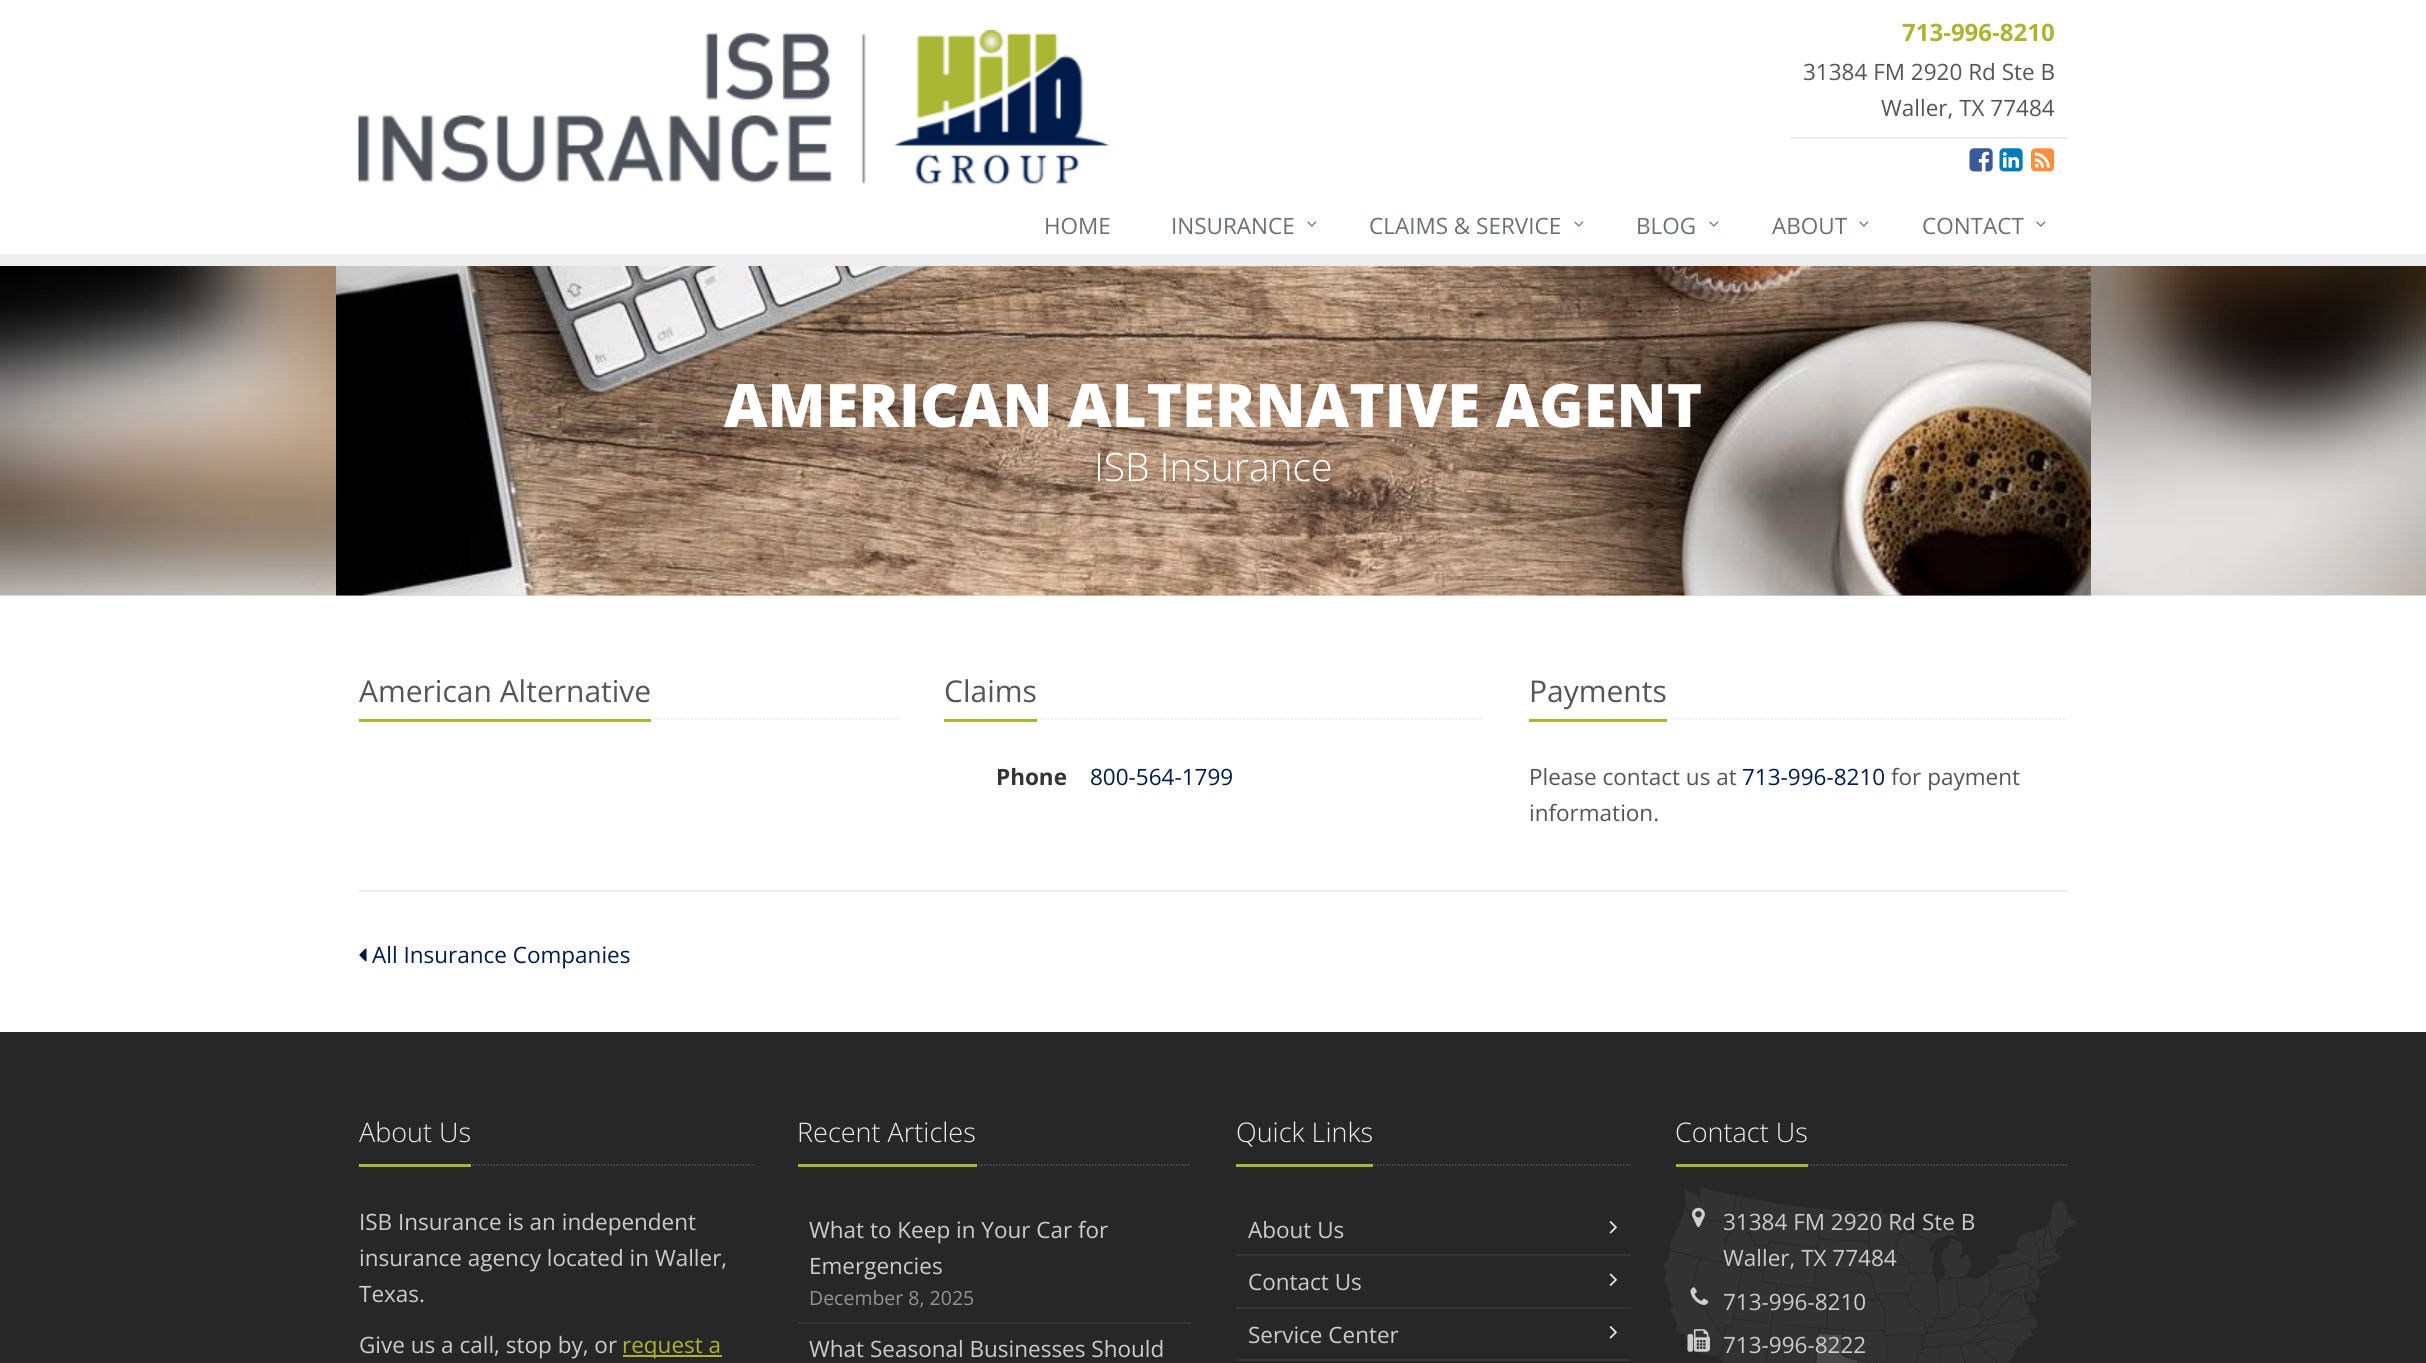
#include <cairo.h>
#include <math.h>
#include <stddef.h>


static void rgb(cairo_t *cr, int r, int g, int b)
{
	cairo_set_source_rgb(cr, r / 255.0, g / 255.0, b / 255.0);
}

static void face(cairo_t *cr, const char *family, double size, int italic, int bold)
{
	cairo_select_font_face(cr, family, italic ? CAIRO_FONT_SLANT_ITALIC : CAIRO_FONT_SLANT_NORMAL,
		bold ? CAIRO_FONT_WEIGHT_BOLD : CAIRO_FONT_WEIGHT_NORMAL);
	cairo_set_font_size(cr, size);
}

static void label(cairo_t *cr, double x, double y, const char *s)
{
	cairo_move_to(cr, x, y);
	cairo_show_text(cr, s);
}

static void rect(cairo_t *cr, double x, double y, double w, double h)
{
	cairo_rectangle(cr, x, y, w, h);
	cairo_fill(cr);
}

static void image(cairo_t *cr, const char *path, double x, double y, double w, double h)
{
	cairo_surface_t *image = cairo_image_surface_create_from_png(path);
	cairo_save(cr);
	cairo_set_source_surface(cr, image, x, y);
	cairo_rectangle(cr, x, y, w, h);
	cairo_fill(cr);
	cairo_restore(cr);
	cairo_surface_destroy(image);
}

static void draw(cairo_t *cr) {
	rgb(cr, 255, 255, 255);
	cairo_paint(cr);
	rgb(cr, 238, 238, 238);
	rect(cr, 0, 254, 2426, 12);
	image(cr, "image0.png", 358, 30, 752, 155);
	rect(cr, 1790, 137, 279, 2);
	face(cr, "Open Sans", 24, 0, 1);
	rgb(cr, 169, 181, 51);
	label(cr, 1902, 41, "713-996-8210");
	face(cr, "Open Sans", 22.5, 0, 0);
	rgb(cr, 85, 85, 85);
	label(cr, 1803, 80, "31384 FM 2920 Rd Ste B");
	label(cr, 1881, 116, "Waller, TX 77484");
	image(cr, "image1.png", 1969, 148, 24, 24);
	image(cr, "image2.png", 1999, 148, 24, 24);
	image(cr, "image3.png", 2031, 148, 24, 24);
	rgb(cr, 104, 112, 116);
	label(cr, 1044, 234, "HOME");
	label(cr, 1171, 234, "INSURANCE");
	image(cr, "image4.png", 1307, 221, 10, 6);
	label(cr, 1369, 234, "CLAIMS & SERVICE");
	image(cr, "image4.png", 1574, 221, 10, 6);
	label(cr, 1636, 234, "BLOG");
	image(cr, "image4.png", 1709, 221, 10, 6);
	label(cr, 1772, 234, "ABOUT");
	image(cr, "image4.png", 1859, 221, 10, 6);
	label(cr, 1922, 234, "CONTACT");
	image(cr, "image4.png", 2036, 221, 10, 6);
	image(cr, "image5.png", 0, 266, 2426, 330);
	face(cr, "Open Sans ExtraBold", 60, 0, 0);
	rgb(cr, 255, 255, 255);
	label(cr, 724, 427, "AMERICAN ALTERNATIVE AGENT");
	face(cr, "Open Sans Light", 39, 0, 0);
	label(cr, 1094, 481, "ISB Insurance");
	cairo_new_path(cr);
	cairo_move_to(cr, 358.5, 719);
	cairo_line_to(cr, 898.5, 719);
	rgb(cr, 228, 233, 240);
	cairo_set_line_width(cr, 1.5);
	cairo_set_dash(cr, (double[]){1.5, 1.5}, 2, 0);
	cairo_stroke(cr);
	rgb(cr, 169, 181, 51);
	rect(cr, 359, 719, 292, 3);
	face(cr, "Open Sans", 30, 0, 0);
	rgb(cr, 85, 85, 85);
	label(cr, 359, 702, "American Alternative");
	cairo_new_path(cr);
	cairo_move_to(cr, 943.5, 719);
	cairo_line_to(cr, 1483.5, 719);
	rgb(cr, 228, 233, 240);
	cairo_stroke(cr);
	rgb(cr, 169, 181, 51);
	rect(cr, 944, 719, 93, 3);
	rgb(cr, 85, 85, 85);
	label(cr, 944, 702, "Claims");
	face(cr, "Open Sans", 22.5, 0, 1);
	rgb(cr, 51, 51, 51);
	label(cr, 996, 785, "Phone");
	face(cr, "Open Sans", 22.5, 0, 0);
	rgb(cr, 0, 27, 73);
	label(cr, 1090, 785, "800-564-1799");
	cairo_new_path(cr);
	cairo_move_to(cr, 1528.5, 719);
	cairo_line_to(cr, 2068.5, 719);
	rgb(cr, 228, 233, 240);
	cairo_stroke(cr);
	rgb(cr, 169, 181, 51);
	rect(cr, 1529, 719, 138, 3);
	face(cr, "Open Sans", 30, 0, 0);
	rgb(cr, 85, 85, 85);
	label(cr, 1529, 702, "Payments");
	face(cr, "Open Sans", 22.5, 0, 0);
	label(cr, 1529, 785, "Please contact us at");
	rgb(cr, 0, 27, 73);
	label(cr, 1742, 785, "713-996-8210");
	rgb(cr, 85, 85, 85);
	label(cr, 1891, 785, "for payment");
	label(cr, 1529, 821, "information.");
	rgb(cr, 238, 238, 238);
	rect(cr, 359, 890, 1710, 2);
	image(cr, "image6.png", 359, 948, 8, 14);
	rgb(cr, 0, 27, 73);
	label(cr, 372, 963, "All Insurance Companies");
	rgb(cr, 39, 39, 39);
	rect(cr, 0, 1032, 2426, 331);
	cairo_new_path(cr);
	cairo_move_to(cr, 358.5, 1165);
	cairo_line_to(cr, 753, 1165);
	rgb(cr, 84, 84, 84);
	cairo_stroke(cr);
	rgb(cr, 169, 181, 51);
	rect(cr, 359, 1164, 112, 3);
	face(cr, "Open Sans Light", 27, 0, 0);
	rgb(cr, 238, 238, 238);
	label(cr, 359, 1142, "About Us");
	face(cr, "Open Sans", 22.5, 0, 0);
	rgb(cr, 204, 204, 204);
	label(cr, 359, 1230, "ISB Insurance is an independent");
	label(cr, 359, 1266, "insurance agency located in Waller,");
	label(cr, 359, 1302, "Texas.");
	label(cr, 359, 1353, "Give us a call, stop by, or");
	rgb(cr, 169, 181, 51);
	rect(cr, 623, 1355, 99, 2);
	label(cr, 622, 1353, "request a");
	cairo_new_path(cr);
	cairo_move_to(cr, 798, 1165);
	cairo_line_to(cr, 1191, 1165);
	rgb(cr, 84, 84, 84);
	cairo_stroke(cr);
	rgb(cr, 169, 181, 51);
	rect(cr, 798, 1164, 179, 3);
	face(cr, "Open Sans Light", 27, 0, 0);
	rgb(cr, 238, 238, 238);
	label(cr, 797, 1142, "Recent Articles");
	face(cr, "Open Sans", 22.5, 0, 0);
	rgb(cr, 204, 204, 204);
	label(cr, 809, 1238, "What to Keep in Your Car for");
	label(cr, 809, 1274, "Emergencies");
	face(cr, "Open Sans", 19.5, 0, 0);
	rgb(cr, 147, 147, 147);
	label(cr, 809, 1305, "December 8, 2025");
	rgb(cr, 53, 53, 53);
	rect(cr, 798, 1322, 393, 2);
	face(cr, "Open Sans", 22.5, 0, 0);
	rgb(cr, 204, 204, 204);
	label(cr, 809, 1357, "What Seasonal Businesses Should");
	cairo_new_path(cr);
	cairo_move_to(cr, 1236, 1165);
	cairo_line_to(cr, 1630.5, 1165);
	rgb(cr, 84, 84, 84);
	cairo_stroke(cr);
	rgb(cr, 169, 181, 51);
	rect(cr, 1236, 1164, 137, 3);
	face(cr, "Open Sans Light", 27, 0, 0);
	rgb(cr, 238, 238, 238);
	label(cr, 1236, 1142, "Quick Links");
	face(cr, "Open Sans", 22.5, 0, 0);
	rgb(cr, 204, 204, 204);
	label(cr, 1248, 1238, "About Us");
	image(cr, "image7.png", 1609, 1221, 8, 13);
	rgb(cr, 53, 53, 53);
	rect(cr, 1236, 1254, 395, 2);
	rgb(cr, 204, 204, 204);
	label(cr, 1248, 1290, "Contact Us");
	image(cr, "image8.png", 1609, 1273, 8, 13);
	rgb(cr, 53, 53, 53);
	rect(cr, 1236, 1307, 395, 2);
	rgb(cr, 204, 204, 204);
	label(cr, 1248, 1343, "Service Center");
	image(cr, "image7.png", 1609, 1326, 8, 13);
	rgb(cr, 53, 53, 53);
	rect(cr, 1236, 1359, 395, 2);
	image(cr, "image9.png", 1663, 1187, 413, 176);
	cairo_new_path(cr);
	cairo_move_to(cr, 1675.5, 1165);
	cairo_line_to(cr, 2068.5, 1165);
	rgb(cr, 84, 84, 84);
	cairo_stroke(cr);
	rgb(cr, 169, 181, 51);
	rect(cr, 1676, 1164, 132, 3);
	face(cr, "Open Sans Light", 27, 0, 0);
	rgb(cr, 238, 238, 238);
	label(cr, 1675, 1142, "Contact Us");
	image(cr, "image10.png", 1692, 1207, 13, 21);
	face(cr, "Open Sans", 22.5, 0, 0);
	rgb(cr, 204, 204, 204);
	label(cr, 1723, 1230, "31384 FM 2920 Rd");
	label(cr, 1922, 1230, "Ste B");
	label(cr, 1723, 1266, "Waller, TX 77484");
	image(cr, "image11.png", 1690, 1287, 19, 18);
	label(cr, 1723, 1310, "713-996-8210");
	image(cr, "image12.png", 1687, 1329, 23, 23);
	label(cr, 1723, 1353, "713-996-8222");
}

int main(void) {
	cairo_surface_t *surface = cairo_image_surface_create(CAIRO_FORMAT_RGB24, 2426, 1363);
	cairo_t *cr = cairo_create(surface);
	cairo_font_options_t *options = cairo_font_options_create();
	cairo_font_options_set_hint_metrics(options, CAIRO_HINT_METRICS_OFF);
	cairo_font_options_set_hint_style(options, CAIRO_HINT_STYLE_NONE);
	cairo_set_font_options(cr, options);
	cairo_set_miter_limit(cr, 4);
	draw(cr);
	cairo_surface_write_to_png(surface, "render.png");
	cairo_font_options_destroy(options);
	cairo_destroy(cr);
	cairo_surface_destroy(surface);
	return 0;
}
